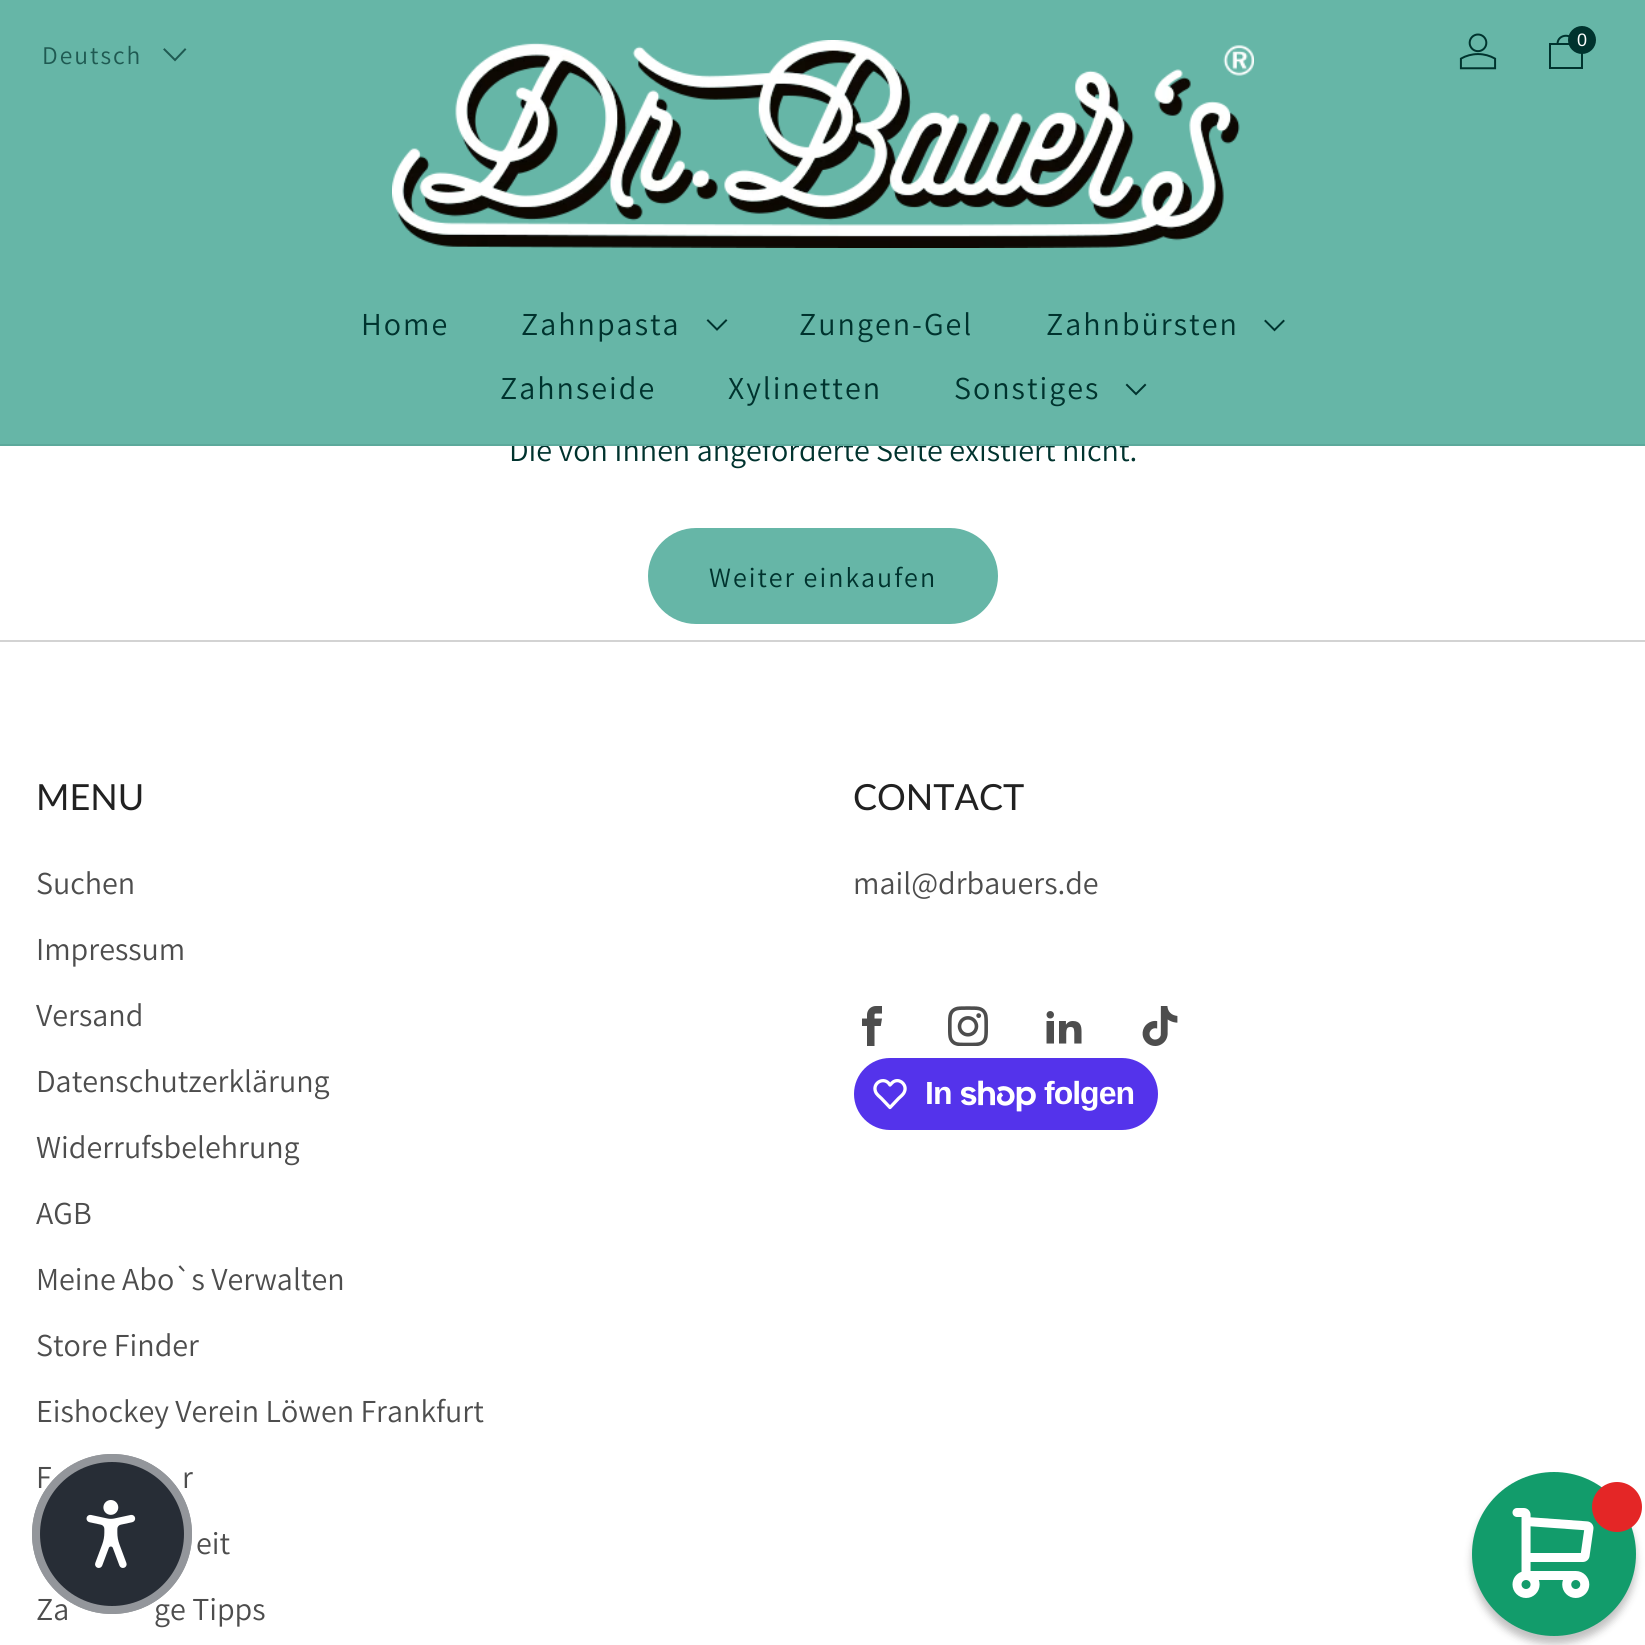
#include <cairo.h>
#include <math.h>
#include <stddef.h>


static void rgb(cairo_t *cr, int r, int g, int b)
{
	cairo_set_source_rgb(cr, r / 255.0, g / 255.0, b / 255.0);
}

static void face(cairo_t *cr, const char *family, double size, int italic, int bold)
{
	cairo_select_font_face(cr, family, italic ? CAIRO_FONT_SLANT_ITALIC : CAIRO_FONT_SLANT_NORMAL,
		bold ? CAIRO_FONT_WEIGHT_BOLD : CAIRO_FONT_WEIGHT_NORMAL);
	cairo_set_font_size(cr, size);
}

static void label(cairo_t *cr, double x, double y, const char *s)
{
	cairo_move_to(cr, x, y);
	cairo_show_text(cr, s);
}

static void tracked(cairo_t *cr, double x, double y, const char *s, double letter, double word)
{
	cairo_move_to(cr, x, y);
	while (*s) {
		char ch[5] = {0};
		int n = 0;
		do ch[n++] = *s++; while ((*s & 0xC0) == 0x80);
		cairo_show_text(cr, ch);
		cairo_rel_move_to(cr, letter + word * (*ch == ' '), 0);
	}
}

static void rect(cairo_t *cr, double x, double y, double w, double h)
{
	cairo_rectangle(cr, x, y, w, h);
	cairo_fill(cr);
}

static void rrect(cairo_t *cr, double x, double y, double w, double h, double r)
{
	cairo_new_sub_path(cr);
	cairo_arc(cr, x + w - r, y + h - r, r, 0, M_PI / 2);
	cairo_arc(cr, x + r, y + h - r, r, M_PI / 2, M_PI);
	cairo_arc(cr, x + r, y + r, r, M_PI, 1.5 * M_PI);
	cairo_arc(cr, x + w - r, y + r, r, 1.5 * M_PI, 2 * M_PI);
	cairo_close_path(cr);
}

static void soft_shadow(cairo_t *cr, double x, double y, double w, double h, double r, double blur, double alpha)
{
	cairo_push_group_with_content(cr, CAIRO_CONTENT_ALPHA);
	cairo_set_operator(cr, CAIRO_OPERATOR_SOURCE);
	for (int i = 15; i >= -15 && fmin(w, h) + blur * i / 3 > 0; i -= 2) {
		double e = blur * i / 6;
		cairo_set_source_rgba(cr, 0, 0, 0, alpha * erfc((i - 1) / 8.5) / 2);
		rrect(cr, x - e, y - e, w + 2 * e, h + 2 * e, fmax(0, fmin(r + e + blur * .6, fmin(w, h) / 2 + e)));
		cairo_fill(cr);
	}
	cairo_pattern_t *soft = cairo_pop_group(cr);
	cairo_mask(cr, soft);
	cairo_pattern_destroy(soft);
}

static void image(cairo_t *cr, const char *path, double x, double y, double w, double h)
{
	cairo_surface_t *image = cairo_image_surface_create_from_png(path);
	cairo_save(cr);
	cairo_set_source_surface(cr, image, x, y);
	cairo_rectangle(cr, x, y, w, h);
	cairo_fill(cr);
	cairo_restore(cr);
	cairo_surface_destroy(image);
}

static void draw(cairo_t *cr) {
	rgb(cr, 255, 255, 255);
	cairo_paint(cr);
	face(cr, "Assistant", 32, 0, 0);
	rgb(cr, 0, 51, 46);
	label(cr, 509, 461, "Die von Ihnen angeforderte Seite existiert nicht.");
	rgb(cr, 102, 182, 167);
	rect(cr, 0, 0, 1645, 444);
	rgb(cr, 92, 169, 155);
	rect(cr, 0, 444, 1645, 2);
	image(cr, "image0.png", 1459, 33, 38, 37);
	cairo_new_path(cr);
	cairo_move_to(cr, 1574.5, 44);
	cairo_curve_to(cr, 1574.5, 33, 1557.5, 33, 1557.5, 44);
	cairo_move_to(cr, 1550, 44);
	cairo_line_to(cr, 1582, 44);
	cairo_line_to(cr, 1582, 68);
	cairo_line_to(cr, 1550, 68);
	cairo_close_path(cr);
	rgb(cr, 0, 51, 46);
	cairo_stroke(cr);
	cairo_arc(cr, 1582, 40, 14, 0, 2 * M_PI);
	cairo_fill(cr);
	face(cr, "Liberation Sans", 18, 0, 0);
	rgb(cr, 255, 255, 255);
	label(cr, 1577, 46, "0");
	face(cr, "Assistant", 25.5, 0, 0);
	rgb(cr, 31, 90, 82);
	tracked(cr, 42, 64, "Deutsch", 2, 0);
	cairo_new_path(cr);
	cairo_move_to(cr, 185, 49.5);
	cairo_line_to(cr, 175, 60);
	cairo_line_to(cr, 164.5, 49.5);
	cairo_set_line_cap(cr, CAIRO_LINE_CAP_SQUARE);
	cairo_stroke(cr);
	face(cr, "Assistant", 32, 0, 0);
	rgb(cr, 0, 51, 46);
	tracked(cr, 361, 335, "Home", 2, 0);
	tracked(cr, 521, 335, "Zahnpasta", 2, 0);
	cairo_new_path(cr);
	cairo_move_to(cr, 726, 320.5);
	cairo_line_to(cr, 717, 329.5);
	cairo_line_to(cr, 708, 320.5);
	cairo_stroke(cr);
	tracked(cr, 799, 335, "Zungen-Gel", 2, 0);
	tracked(cr, 1046, 335, "Zahnbürsten", 2, 0);
	cairo_new_path(cr);
	cairo_move_to(cr, 1283.5, 321);
	cairo_line_to(cr, 1274.5, 330);
	cairo_line_to(cr, 1265.5, 321);
	cairo_stroke(cr);
	tracked(cr, 500, 399, "Zahnseide", 2, 0);
	tracked(cr, 728, 399, "Xylinetten", 2, 0);
	tracked(cr, 954, 399, "Sonstiges", 2, 0);
	cairo_new_path(cr);
	cairo_move_to(cr, 1145, 385);
	cairo_line_to(cr, 1136, 394);
	cairo_line_to(cr, 1127, 385);
	cairo_stroke(cr);
	image(cr, "image1.png", 392, 40, 862, 208);
	rgb(cr, 102, 182, 167);
	rrect(cr, 648, 528, 350, 96, 48);
	cairo_fill(cr);
	face(cr, "Assistant", 28, 0, 0);
	rgb(cr, 0, 51, 46);
	tracked(cr, 709, 587, "Weiter einkaufen", 2, 0);
	rgb(cr, 211, 211, 211);
	rect(cr, 0, 640, 1645, 2);
	face(cr, "Lato", 36, 0, 0);
	rgb(cr, 33, 33, 33);
	label(cr, 36, 810, "MENU");
	face(cr, "Assistant", 32, 0, 0);
	rgb(cr, 77, 77, 77);
	label(cr, 36, 894, "Suchen");
	label(cr, 36, 960, "Impressum");
	label(cr, 36, 1026, "Versand");
	label(cr, 36, 1092, "Datenschutzerklärung");
	label(cr, 36, 1158, "Widerrufsbelehrung");
	label(cr, 36, 1224, "AGB");
	label(cr, 36, 1290, "Meine Abo`s Verwalten");
	label(cr, 36, 1356, "Store Finder");
	label(cr, 36, 1422, "Eishockey Verein Löwen Frankfurt");
	label(cr, 36, 1488, "F");
	label(cr, 182, 1488, "r");
	label(cr, 196, 1554, "eit");
	label(cr, 36, 1620, "Za");
	label(cr, 154, 1620, "ge Tipps");
	face(cr, "Lato", 36, 0, 0);
	rgb(cr, 33, 33, 33);
	label(cr, 853, 810, "CONTACT");
	face(cr, "Assistant", 32, 0, 0);
	rgb(cr, 77, 77, 77);
	label(cr, 853, 894, "mail@drbauers.de");
	image(cr, "image2.png", 862, 1006, 20, 40);
	image(cr, "image3.png", 948, 1006, 40, 40);
	image(cr, "image4.png", 1046, 1011, 36, 33);
	image(cr, "image5.png", 1142, 1006, 36, 40);
	rgb(cr, 84, 51, 235);
	rrect(cr, 854, 1058, 304, 72, 36);
	cairo_fill(cr);
	cairo_new_path(cr);
	cairo_move_to(cr, 888.5, 1083);
	cairo_line_to(cr, 890, 1085);
	cairo_curve_to(cr, 891.5, 1083.5, 893, 1081.5, 895, 1081);
	cairo_curve_to(cr, 901, 1079, 907, 1085.5, 904.5, 1091.5);
	cairo_curve_to(cr, 903.5, 1094.5, 900.5, 1096.5, 898.5, 1098.5);
	cairo_line_to(cr, 890, 1107.5);
	cairo_line_to(cr, 881.5, 1098.5);
	cairo_curve_to(cr, 879.5, 1096.5, 876.5, 1094.5, 875.5, 1091.5);
	cairo_curve_to(cr, 872.5, 1083.5, 882.5, 1077, 888.5, 1083);
	cairo_close_path(cr);
	rgb(cr, 255, 255, 255);
	cairo_set_line_width(cr, 3.3);
	cairo_set_line_cap(cr, CAIRO_LINE_CAP_BUTT);
	cairo_set_line_join(cr, CAIRO_LINE_JOIN_ROUND);
	cairo_stroke(cr);
	face(cr, "Liberation Sans", 32, 0, 1);
	tracked(cr, 925, 1104, "In", -1, 0);
	image(cr, "image6.png", 961, 1080, 75, 32);
	tracked(cr, 1044, 1104, "folgen", -1, 0);
	rgb(cr, 39, 45, 54);
	cairo_new_path(cr);
	cairo_arc(cr, 112, 1534, 80, 0, 2 * M_PI);
	cairo_fill(cr);
	cairo_arc(cr, 112, 1534, 76, 0, 2 * M_PI);
	cairo_set_source_rgba(cr, 1, 1, 1, 0.5);
	cairo_set_line_width(cr, 8);
	cairo_set_line_join(cr, CAIRO_LINE_JOIN_MITER);
	cairo_stroke(cr);
	image(cr, "image7.png", 86, 1500, 50, 68);
	rgb(cr, 0, 0, 0);
	soft_shadow(cr, 1472, 1480, 164, 164, 82, 4, 0.25);
	rgb(cr, 18, 156, 107);
	cairo_arc(cr, 1554, 1554, 82, 0, 2 * M_PI);
	cairo_fill(cr);
	rgb(cr, 228, 38, 38);
	cairo_arc(cr, 1617, 1507, 25, 0, 2 * M_PI);
	cairo_fill(cr);
	image(cr, "image8.png", 1512, 1508, 82, 90);
}

int main(void) {
	cairo_surface_t *surface = cairo_image_surface_create(CAIRO_FORMAT_RGB24, 1645, 1645);
	cairo_t *cr = cairo_create(surface);
	cairo_font_options_t *options = cairo_font_options_create();
	cairo_font_options_set_hint_metrics(options, CAIRO_HINT_METRICS_OFF);
	cairo_font_options_set_hint_style(options, CAIRO_HINT_STYLE_NONE);
	cairo_set_font_options(cr, options);
	cairo_set_miter_limit(cr, 4);
	draw(cr);
	cairo_surface_write_to_png(surface, "render.png");
	cairo_font_options_destroy(options);
	cairo_destroy(cr);
	cairo_surface_destroy(surface);
	return 0;
}
